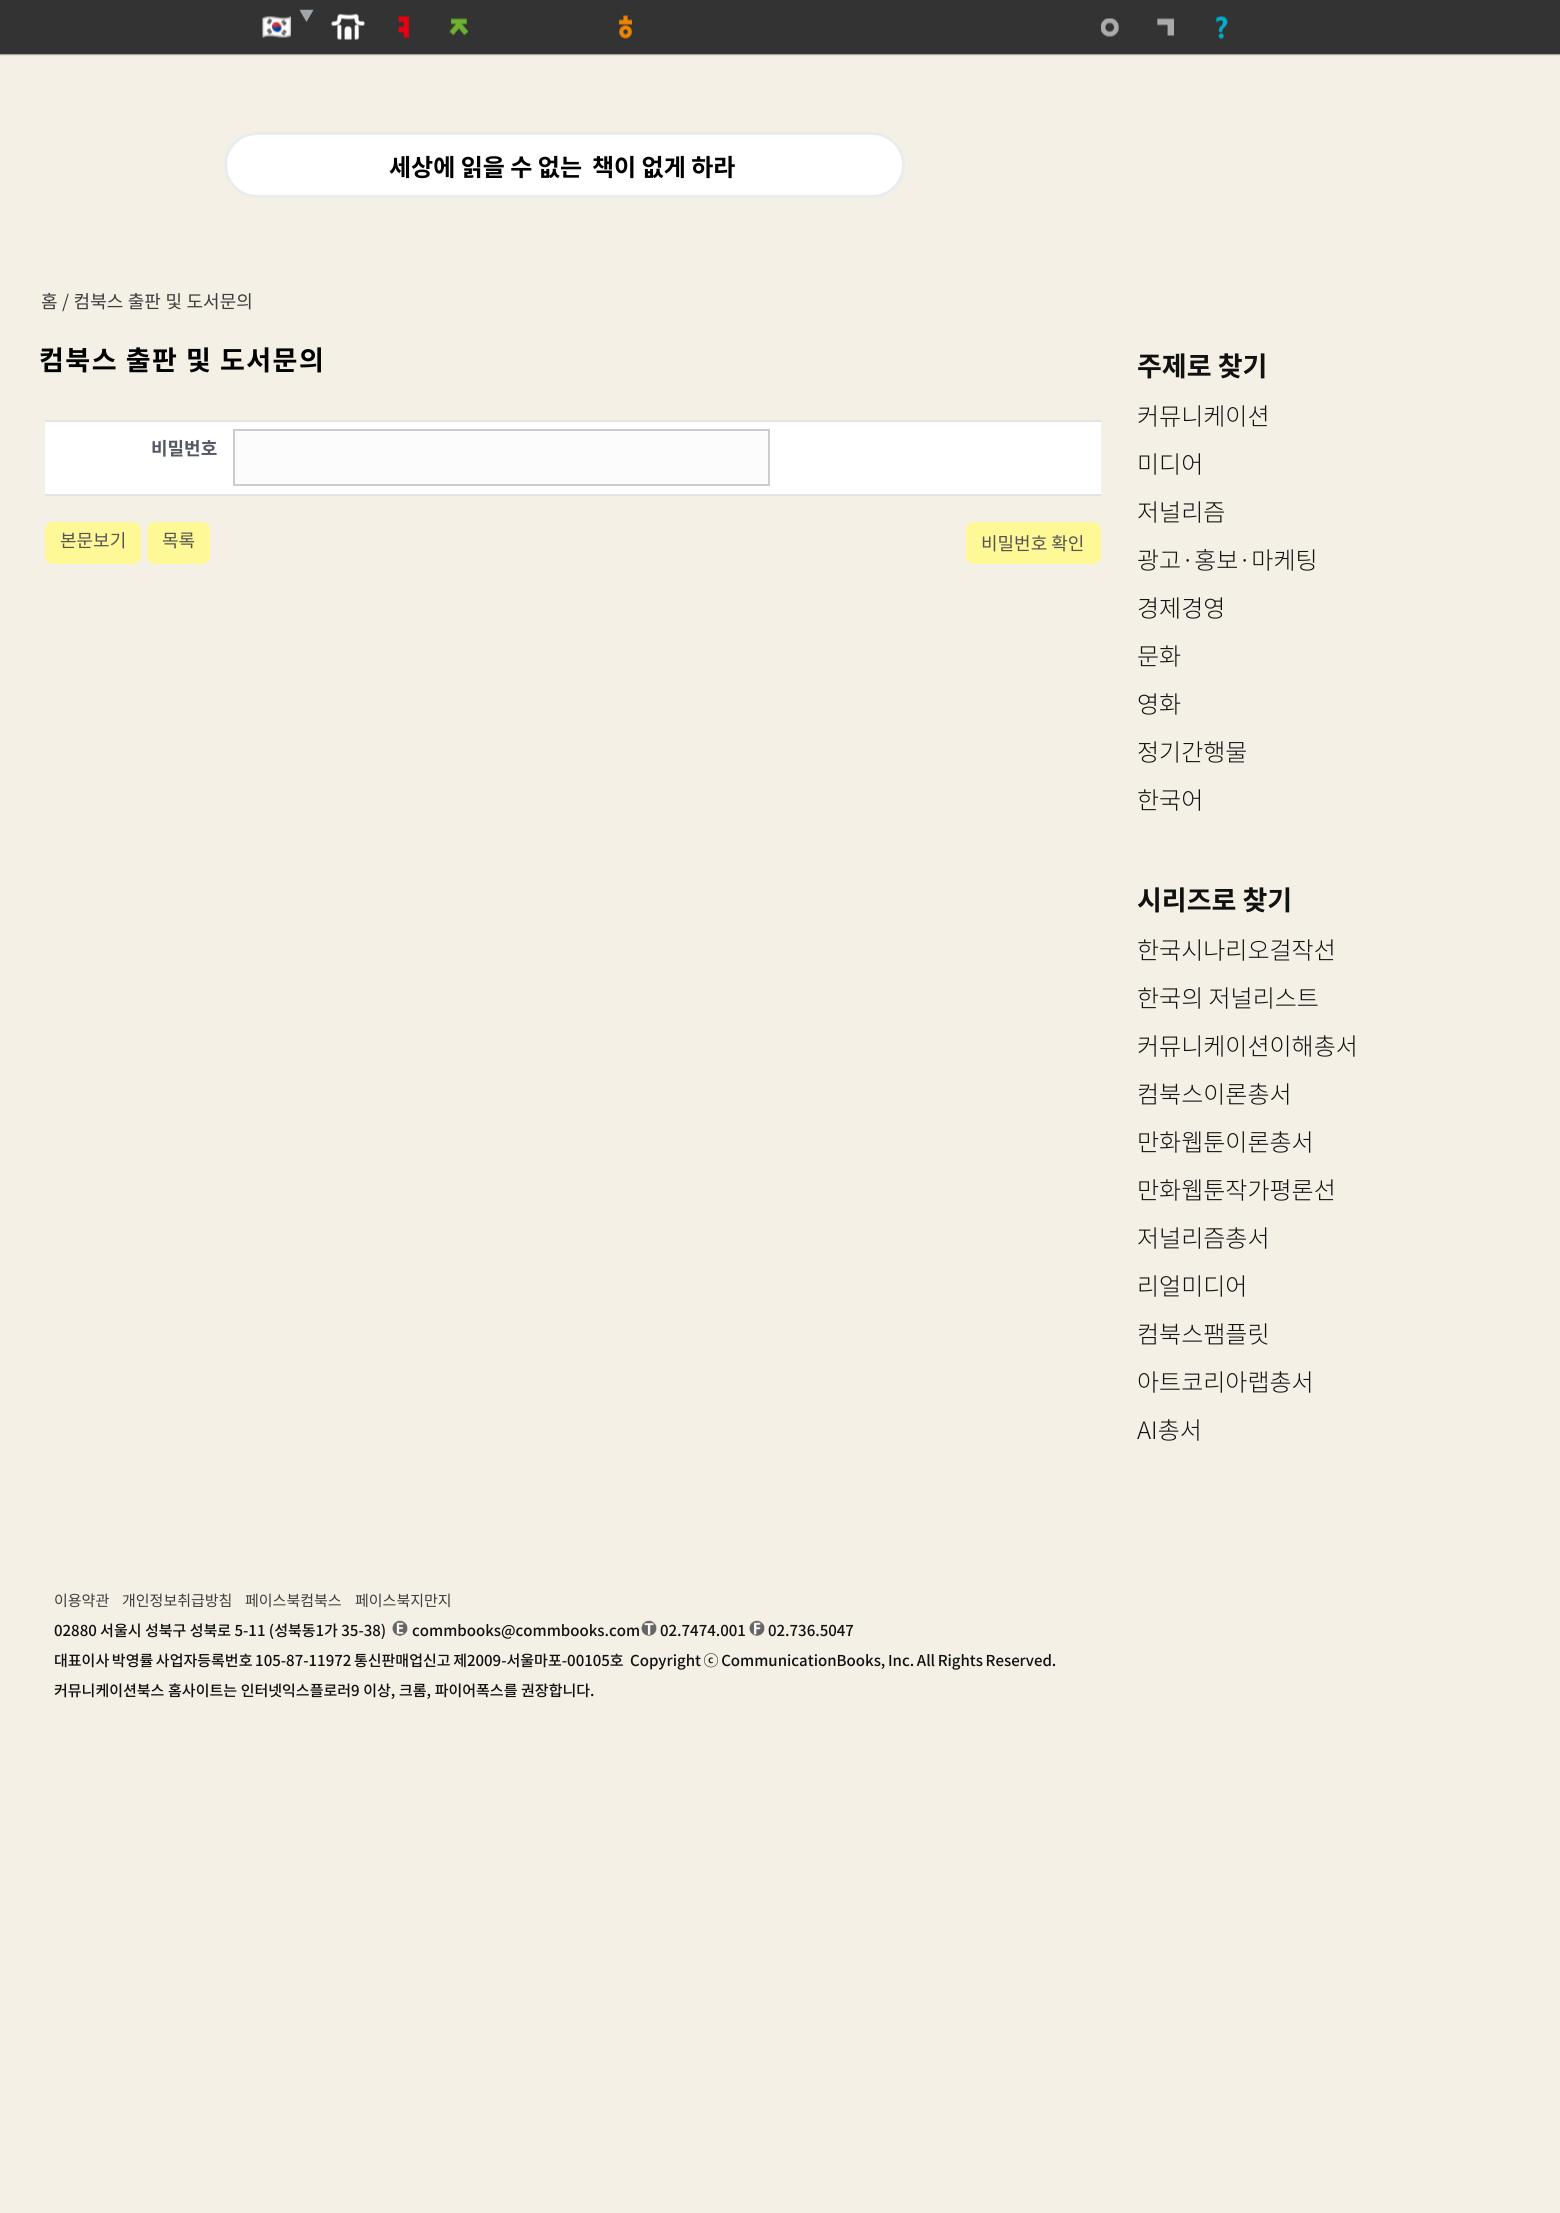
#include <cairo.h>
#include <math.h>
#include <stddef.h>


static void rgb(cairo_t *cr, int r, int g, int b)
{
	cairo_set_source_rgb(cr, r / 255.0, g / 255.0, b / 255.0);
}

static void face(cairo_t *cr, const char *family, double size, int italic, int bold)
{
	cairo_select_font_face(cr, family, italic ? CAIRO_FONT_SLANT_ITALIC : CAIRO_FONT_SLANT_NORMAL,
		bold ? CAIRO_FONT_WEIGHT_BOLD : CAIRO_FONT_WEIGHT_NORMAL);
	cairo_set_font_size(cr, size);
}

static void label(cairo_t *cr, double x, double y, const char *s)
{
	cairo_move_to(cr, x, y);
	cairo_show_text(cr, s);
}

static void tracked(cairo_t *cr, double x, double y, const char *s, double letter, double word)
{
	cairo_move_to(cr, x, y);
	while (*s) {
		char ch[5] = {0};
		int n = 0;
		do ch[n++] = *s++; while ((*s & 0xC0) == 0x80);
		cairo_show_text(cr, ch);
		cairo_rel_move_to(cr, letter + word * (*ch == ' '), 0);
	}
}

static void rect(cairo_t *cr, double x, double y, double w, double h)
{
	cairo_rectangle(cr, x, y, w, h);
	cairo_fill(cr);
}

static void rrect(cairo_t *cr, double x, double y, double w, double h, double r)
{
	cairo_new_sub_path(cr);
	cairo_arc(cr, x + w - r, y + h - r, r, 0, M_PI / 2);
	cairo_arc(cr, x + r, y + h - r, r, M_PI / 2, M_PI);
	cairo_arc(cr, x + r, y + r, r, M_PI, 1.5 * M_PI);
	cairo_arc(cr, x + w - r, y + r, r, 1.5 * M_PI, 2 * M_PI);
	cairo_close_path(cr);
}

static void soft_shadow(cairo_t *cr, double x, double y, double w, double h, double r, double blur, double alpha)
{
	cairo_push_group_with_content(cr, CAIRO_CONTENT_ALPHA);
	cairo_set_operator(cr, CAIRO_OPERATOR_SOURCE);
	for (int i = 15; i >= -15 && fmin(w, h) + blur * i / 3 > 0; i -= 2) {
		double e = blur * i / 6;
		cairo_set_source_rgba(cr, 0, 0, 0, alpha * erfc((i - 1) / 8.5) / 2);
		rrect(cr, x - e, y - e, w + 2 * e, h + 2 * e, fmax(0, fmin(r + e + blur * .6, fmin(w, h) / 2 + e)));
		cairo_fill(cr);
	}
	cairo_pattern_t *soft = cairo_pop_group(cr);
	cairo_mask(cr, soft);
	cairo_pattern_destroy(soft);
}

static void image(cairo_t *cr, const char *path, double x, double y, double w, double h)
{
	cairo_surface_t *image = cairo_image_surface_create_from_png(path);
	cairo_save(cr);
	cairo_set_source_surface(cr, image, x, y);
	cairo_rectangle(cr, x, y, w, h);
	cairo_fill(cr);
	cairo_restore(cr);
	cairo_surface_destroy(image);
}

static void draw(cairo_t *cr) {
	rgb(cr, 245, 240, 230);
	cairo_paint(cr);
	rgb(cr, 35, 24, 21);
	soft_shadow(cr, 0, 0, 1560, 54, 0, 1, 1);
	rgb(cr, 51, 51, 51);
	rect(cr, 0, 0, 1560, 54);
	image(cr, "image0.png", 262, 16, 29, 22);
	face(cr, "Noto Sans KR", 15, 0, 0);
	rgb(cr, 160, 165, 170);
	label(cr, 299, 21, "▼");
	image(cr, "image1.png", 331, 13, 34, 27);
	image(cr, "image2.png", 398, 16, 12, 22);
	image(cr, "image3.png", 449, 18, 20, 18);
	image(cr, "image4.png", 619, 15, 13, 24);
	image(cr, "image5.png", 1100, 18, 19, 19);
	image(cr, "image6.png", 1157, 18, 17, 18);
	image(cr, "image7.png", 1216, 16, 12, 24);
	rgb(cr, 255, 255, 255);
	rrect(cr, 225.5, 133.5, 678, 63, 31.5);
	cairo_fill_preserve(cr);
	rgb(cr, 233, 236, 239);
	cairo_set_line_width(cr, 3);
	cairo_stroke(cr);
	face(cr, "Noto Sans KR", 24, 0, 1);
	rgb(cr, 0, 0, 0);
	label(cr, 389, 176, "세상에 읽을 수 없는");
	label(cr, 592, 176, "책이 없게 하라");
	face(cr, "Noto Sans KR", 18, 0, 0);
	rgb(cr, 61, 61, 61);
	label(cr, 41, 308, "홈");
	tracked(cr, 62, 308, "/ 컴북스 출판 및 도서문의", 0, 0.5);
	face(cr, "Noto Sans KR", 27, 0, 1);
	rgb(cr, 0, 0, 0);
	tracked(cr, 39, 370, "컴북스 출판 및 도서문의", 1.5, 0);
	rgb(cr, 227, 227, 227);
	rect(cr, 45, 420, 1056, 2);
	rgb(cr, 255, 255, 255);
	rect(cr, 45, 422, 1056, 72);
	rgb(cr, 227, 227, 227);
	rect(cr, 45, 494, 1056, 2);
	face(cr, "Noto Sans KR", 18, 0, 1);
	rgb(cr, 84, 88, 97);
	label(cr, 151, 455, "비밀번호");
	rgb(cr, 252, 252, 252);
	cairo_rectangle(cr, 234, 430, 535, 55);
	cairo_fill_preserve(cr);
	rgb(cr, 204, 204, 204);
	cairo_set_line_width(cr, 2);
	cairo_stroke(cr);
	rgb(cr, 255, 248, 151);
	rrect(cr, 45, 522, 96, 42, 8);
	cairo_fill(cr);
	face(cr, "Noto Sans KR", 18, 0, 0);
	rgb(cr, 85, 85, 85);
	label(cr, 60, 547, "본문보기");
	rgb(cr, 255, 248, 151);
	rrect(cr, 147, 522, 63, 42, 8);
	cairo_fill(cr);
	rgb(cr, 85, 85, 85);
	label(cr, 162, 547, "목록");
	rgb(cr, 255, 248, 151);
	rrect(cr, 966, 522, 135, 42, 8);
	cairo_fill(cr);
	rgb(cr, 85, 85, 85);
	label(cr, 981, 550, "비밀번호 확인");
	face(cr, "Noto Sans KR", 27, 0, 1);
	rgb(cr, 17, 17, 17);
	label(cr, 1137, 376, "주제로 찾기");
	face(cr, "Noto Sans KR Light", 24, 0, 0);
	label(cr, 1137, 425, "커뮤니케이션");
	label(cr, 1137, 473, "미디어");
	label(cr, 1137, 521, "저널리즘");
	label(cr, 1137, 569, "광고·홍보·마케팅");
	label(cr, 1137, 617, "경제경영");
	label(cr, 1137, 665, "문화");
	label(cr, 1137, 713, "영화");
	label(cr, 1137, 761, "정기간행물");
	label(cr, 1137, 809, "한국어");
	face(cr, "Noto Sans KR", 27, 0, 1);
	label(cr, 1137, 910, "시리즈로 찾기");
	face(cr, "Noto Sans KR Light", 24, 0, 0);
	label(cr, 1137, 959, "한국시나리오걸작선");
	label(cr, 1137, 1007, "한국의 저널리스트");
	label(cr, 1137, 1055, "커뮤니케이션이해총서");
	label(cr, 1137, 1103, "컴북스이론총서");
	label(cr, 1137, 1151, "만화웹툰이론총서");
	label(cr, 1137, 1199, "만화웹툰작가평론선");
	label(cr, 1137, 1247, "저널리즘총서");
	label(cr, 1137, 1295, "리얼미디어");
	label(cr, 1137, 1343, "컴북스팸플릿");
	label(cr, 1137, 1391, "아트코리아랩총서");
	label(cr, 1137, 1439, "AI총서");
	face(cr, "Noto Sans KR", 15, 0, 0);
	rgb(cr, 61, 61, 61);
	label(cr, 54, 1606, "이용약관");
	label(cr, 122, 1606, "개인정보취급방침");
	label(cr, 245, 1606, "페이스북컴북스");
	label(cr, 355, 1606, "페이스북지만지");
	face(cr, "Noto Sans KR Medium", 15, 0, 0);
	rgb(cr, 17, 17, 17);
	label(cr, 54, 1636, "02880 서울시 성북구 성북로 5-11 (성북동1가 35-38)");
	image(cr, "image8.png", 392, 1620, 16, 16);
	label(cr, 412, 1636, "commbooks@commbooks.com");
	image(cr, "image9.png", 641, 1620, 16, 16);
	label(cr, 660, 1636, "02.7474.001");
	image(cr, "image10.png", 749, 1620, 16, 16);
	label(cr, 768, 1636, "02.736.5047");
	tracked(cr, 54, 1666, "대표이사 박영률 사업자등록번호 105-87-11972 통신판매업신고 제2009-서울마포-00105호", 0, -0.75);
	tracked(cr, 630, 1666, "Copyright ⓒ CommunicationBooks, Inc. All Rights Reserved.", 0, -0.75);
	tracked(cr, 54, 1696, "커뮤니케이션북스 홈사이트는 인터넷익스플로러9 이상, 크롬, 파이어폭스를 권장합니다.", 0, 0.25);
}

int main(void) {
	cairo_surface_t *surface = cairo_image_surface_create(CAIRO_FORMAT_RGB24, 1560, 2213);
	cairo_t *cr = cairo_create(surface);
	cairo_font_options_t *options = cairo_font_options_create();
	cairo_font_options_set_hint_metrics(options, CAIRO_HINT_METRICS_OFF);
	cairo_font_options_set_hint_style(options, CAIRO_HINT_STYLE_NONE);
	cairo_set_font_options(cr, options);
	cairo_set_miter_limit(cr, 4);
	draw(cr);
	cairo_surface_write_to_png(surface, "render.png");
	cairo_font_options_destroy(options);
	cairo_destroy(cr);
	cairo_surface_destroy(surface);
	return 0;
}
